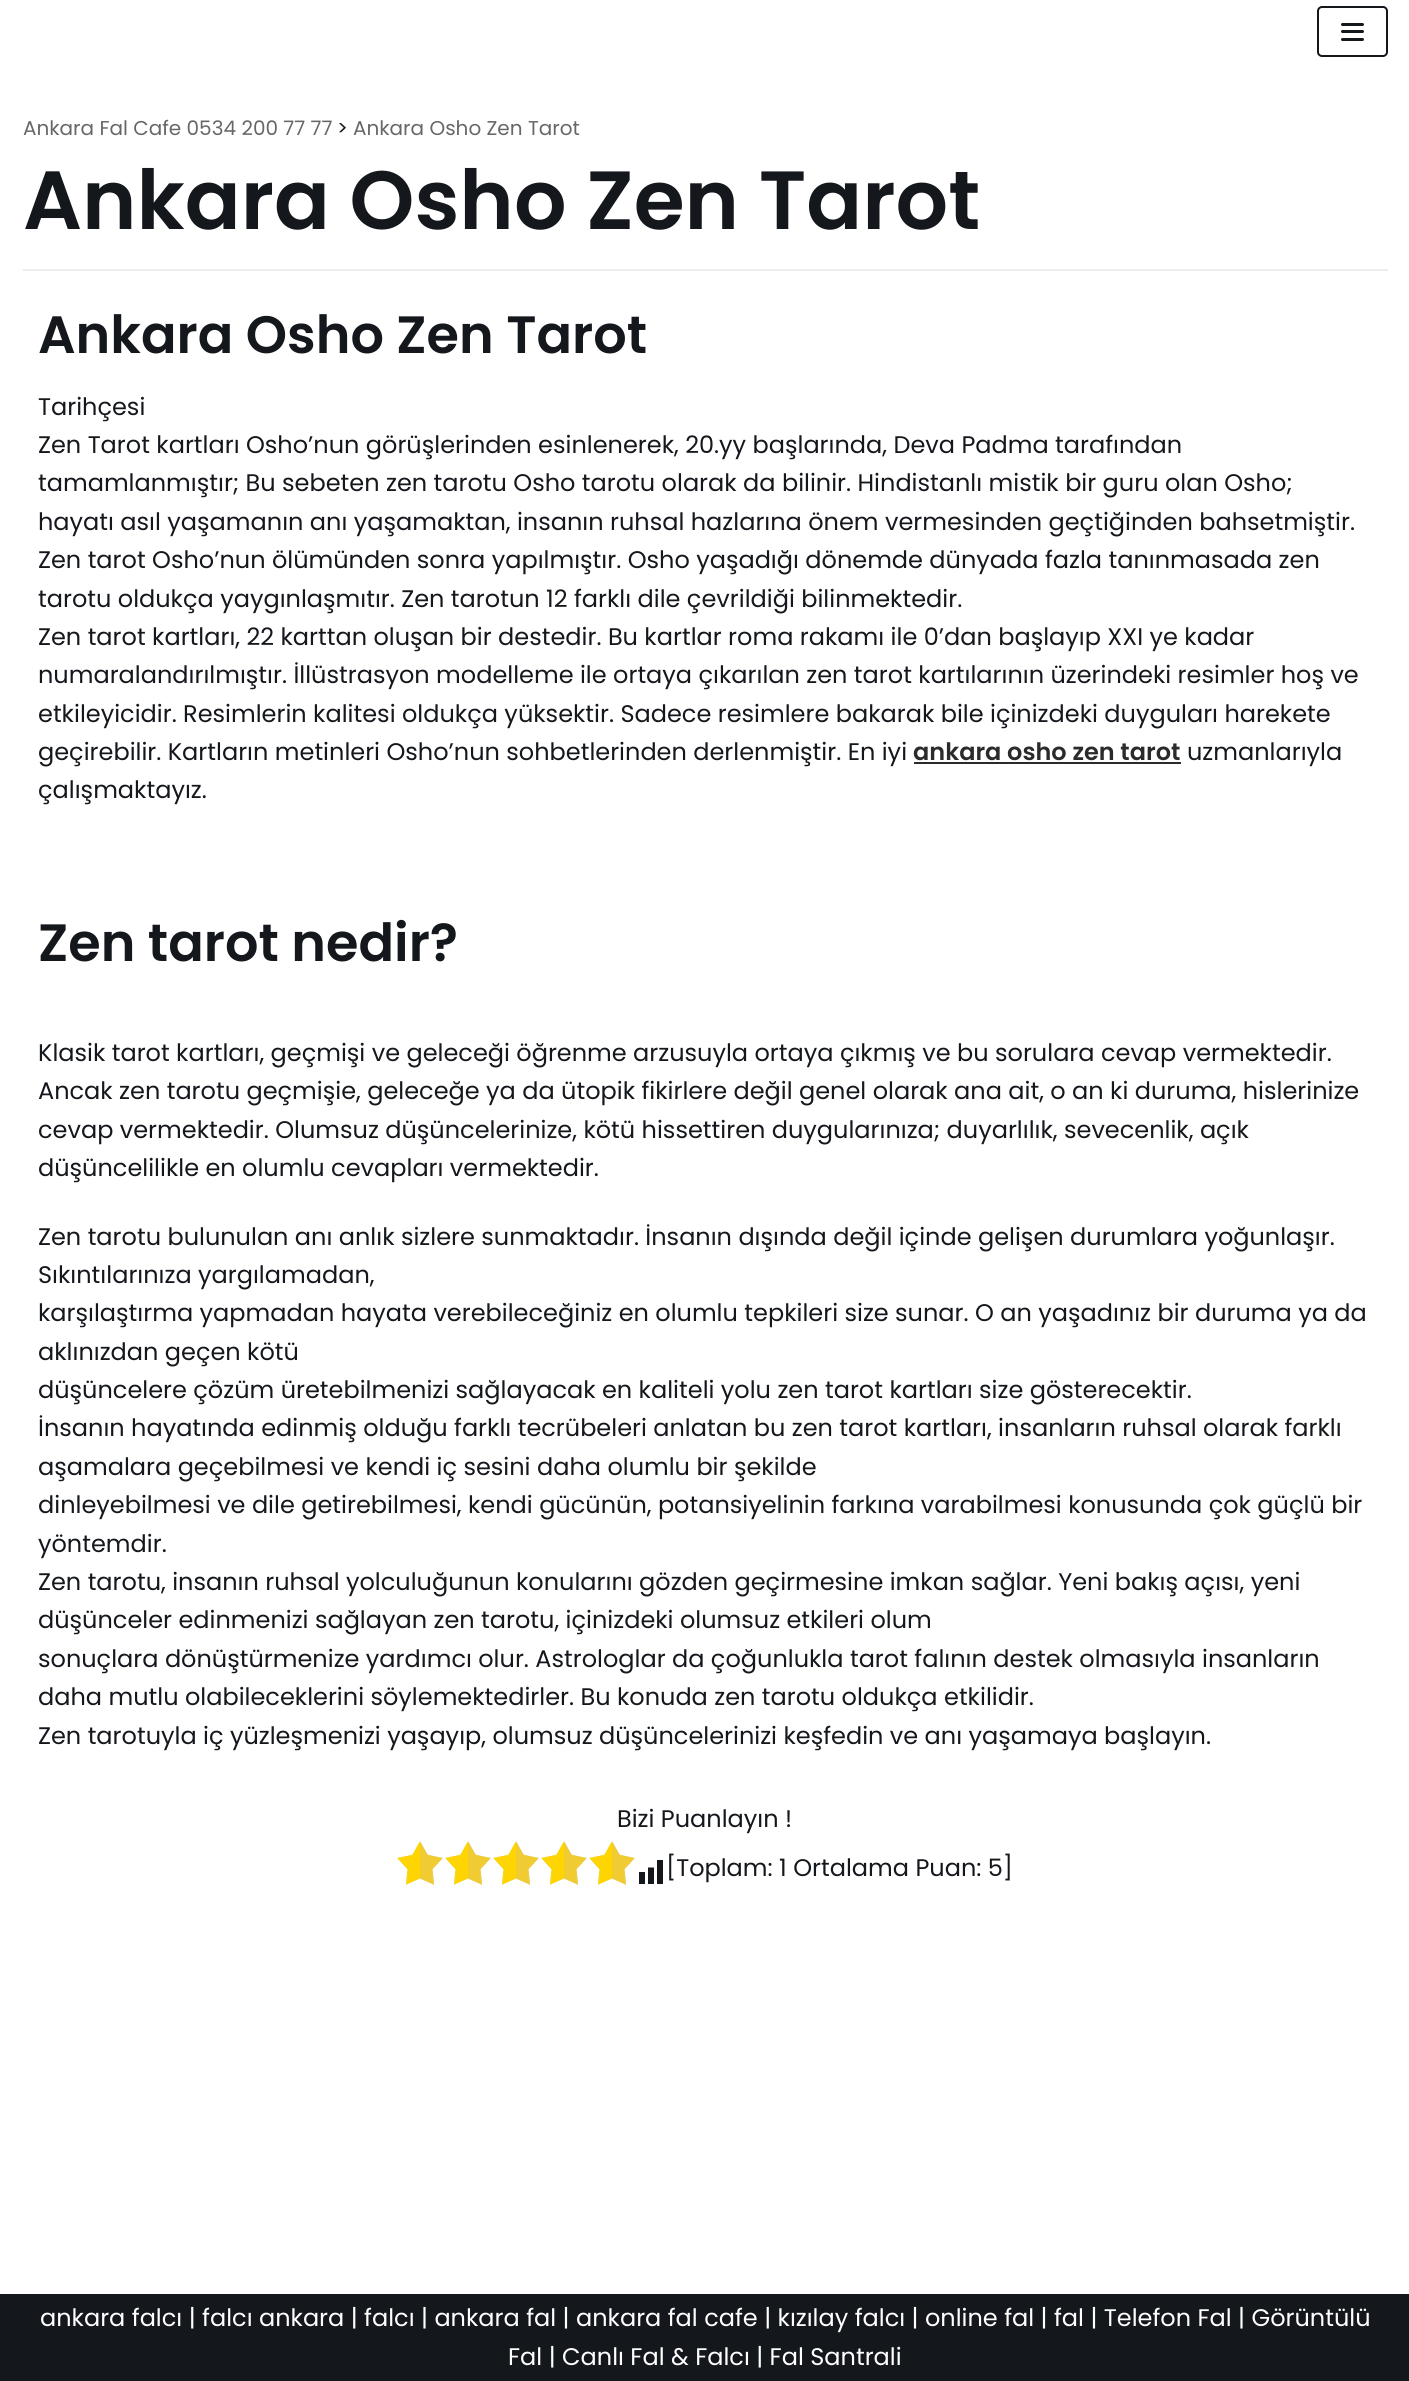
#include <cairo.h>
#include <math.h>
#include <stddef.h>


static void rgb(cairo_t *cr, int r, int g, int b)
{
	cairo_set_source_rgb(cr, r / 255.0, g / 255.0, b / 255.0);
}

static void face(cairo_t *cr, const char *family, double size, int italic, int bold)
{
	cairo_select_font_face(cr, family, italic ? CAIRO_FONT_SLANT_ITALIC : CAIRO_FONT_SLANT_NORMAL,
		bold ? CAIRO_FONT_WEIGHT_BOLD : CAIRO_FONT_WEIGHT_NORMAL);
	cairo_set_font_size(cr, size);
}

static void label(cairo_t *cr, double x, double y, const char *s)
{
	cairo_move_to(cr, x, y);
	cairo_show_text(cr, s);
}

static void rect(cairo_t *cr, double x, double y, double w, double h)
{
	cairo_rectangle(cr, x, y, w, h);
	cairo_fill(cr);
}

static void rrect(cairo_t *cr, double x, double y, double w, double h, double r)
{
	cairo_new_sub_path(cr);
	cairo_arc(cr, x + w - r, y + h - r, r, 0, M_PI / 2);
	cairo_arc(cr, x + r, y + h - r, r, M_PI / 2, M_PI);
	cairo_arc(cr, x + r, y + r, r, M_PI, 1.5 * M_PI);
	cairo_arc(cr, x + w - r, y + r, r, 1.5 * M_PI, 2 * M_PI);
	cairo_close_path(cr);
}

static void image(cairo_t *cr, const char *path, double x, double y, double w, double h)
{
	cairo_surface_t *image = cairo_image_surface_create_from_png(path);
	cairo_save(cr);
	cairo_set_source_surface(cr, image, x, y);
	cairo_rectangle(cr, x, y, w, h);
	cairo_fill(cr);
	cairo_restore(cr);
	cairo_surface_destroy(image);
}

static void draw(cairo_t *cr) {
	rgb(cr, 255, 255, 255);
	cairo_paint(cr);
	rrect(cr, 1318, 7, 69, 49, 4);
	rgb(cr, 20, 23, 28);
	cairo_stroke(cr);
	rrect(cr, 1341, 23, 23, 3, 1.5);
	cairo_fill(cr);
	rrect(cr, 1341, 30, 23, 3, 1.5);
	cairo_fill(cr);
	rrect(cr, 1341, 38, 23, 3, 1.5);
	cairo_fill(cr);
	rgb(cr, 237, 237, 237);
	rect(cr, 23, 269, 1365, 2);
	face(cr, "Poppins", 20, 0, 0);
	rgb(cr, 103, 103, 103);
	label(cr, 23, 135, "Ankara Fal Cafe 0534 200 77 77");
	rgb(cr, 20, 23, 28);
	label(cr, 337, 135, ">");
	rgb(cr, 103, 103, 103);
	label(cr, 353, 135, "Ankara Osho Zen Tarot");
	face(cr, "Poppins SemiBold", 82.5, 0, 0);
	rgb(cr, 20, 23, 28);
	label(cr, 23, 229, "Ankara Osho Zen Tarot");
	face(cr, "Poppins SemiBold", 52.5, 0, 0);
	label(cr, 38, 353, "Ankara Osho Zen Tarot");
	face(cr, "Poppins", 24, 0, 0);
	label(cr, 38, 415, "Tarihçesi");
	label(cr, 38, 453, "Zen Tarot kartları Osho’nun görüşlerinden esinlenerek, 20.yy başlarında, Deva Padma tarafından");
	label(cr, 38, 491, "tamamlanmıştır; Bu sebeten zen tarotu Osho tarotu olarak da bilinir. Hindistanlı mistik bir guru olan Osho;");
	label(cr, 38, 530, "hayatı asıl yaşamanın anı yaşamaktan, insanın ruhsal hazlarına önem vermesinden geçtiğinden bahsetmiştir.");
	label(cr, 38, 568, "Zen tarot Osho’nun ölümünden sonra yapılmıştır. Osho yaşadığı dönemde dünyada fazla tanınmasada zen");
	label(cr, 38, 607, "tarotu oldukça yaygınlaşmıtır. Zen tarotun 12 farklı dile çevrildiği bilinmektedir.");
	label(cr, 38, 645, "Zen tarot kartları, 22 karttan oluşan bir destedir. Bu kartlar roma rakamı ile 0’dan başlayıp XXI ye kadar");
	label(cr, 38, 683, "numaralandırılmıştır. İllüstrasyon modelleme ile ortaya çıkarılan zen tarot kartılarının üzerindeki resimler hoş ve");
	label(cr, 38, 722, "etkileyicidir. Resimlerin kalitesi oldukça yüksektir. Sadece resimlere bakarak bile içinizdeki duyguları harekete");
	label(cr, 38, 760, "geçirebilir. Kartların metinleri Osho’nun sohbetlerinden derlenmiştir. En iyi");
	face(cr, "Poppins SemiBold", 24, 0, 0);
	rgb(cr, 43, 43, 43);
	label(cr, 913, 760, "ankara osho zen tarot");
	rect(cr, 914, 762, 267, 2);
	face(cr, "Poppins", 24, 0, 0);
	rgb(cr, 20, 23, 28);
	label(cr, 1187, 760, "uzmanlarıyla");
	label(cr, 38, 798, "çalışmaktayız.");
	face(cr, "Poppins SemiBold", 52.5, 0, 0);
	label(cr, 38, 961, "Zen tarot nedir?");
	face(cr, "Poppins", 24, 0, 0);
	label(cr, 38, 1061, "Klasik tarot kartları, geçmişi ve geleceği öğrenme arzusuyla ortaya çıkmış ve bu sorulara cevap vermektedir.");
	label(cr, 38, 1099, "Ancak zen tarotu geçmişie, geleceğe ya da ütopik fikirlere değil genel olarak ana ait, o an ki duruma, hislerinize");
	label(cr, 38, 1138, "cevap vermektedir. Olumsuz düşüncelerinize, kötü hissettiren duygularınıza; duyarlılık, sevecenlik, açık");
	label(cr, 38, 1176, "düşüncelilikle en olumlu cevapları vermektedir.");
	label(cr, 38, 1245, "Zen tarotu bulunulan anı anlık sizlere sunmaktadır. İnsanın dışında değil içinde gelişen durumlara yoğunlaşır.");
	label(cr, 38, 1283, "Sıkıntılarınıza yargılamadan,");
	label(cr, 38, 1321, "karşılaştırma yapmadan hayata verebileceğiniz en olumlu tepkileri size sunar. O an yaşadınız bir duruma ya da");
	label(cr, 38, 1360, "aklınızdan geçen kötü");
	label(cr, 38, 1398, "düşüncelere çözüm üretebilmenizi sağlayacak en kaliteli yolu zen tarot kartları size gösterecektir.");
	label(cr, 38, 1436, "İnsanın hayatında edinmiş olduğu farklı tecrübeleri anlatan bu zen tarot kartları, insanların ruhsal olarak farklı");
	label(cr, 38, 1475, "aşamalara geçebilmesi ve kendi iç sesini daha olumlu bir şekilde");
	label(cr, 38, 1513, "dinleyebilmesi ve dile getirebilmesi, kendi gücünün, potansiyelinin farkına varabilmesi konusunda çok güçlü bir");
	label(cr, 38, 1552, "yöntemdir.");
	label(cr, 38, 1590, "Zen tarotu, insanın ruhsal yolculuğunun konularını gözden geçirmesine imkan sağlar. Yeni bakış açısı, yeni");
	label(cr, 38, 1628, "düşünceler edinmenizi sağlayan zen tarotu, içinizdeki olumsuz etkileri olum");
	label(cr, 38, 1667, "sonuçlara dönüştürmenize yardımcı olur. Astrologlar da çoğunlukla tarot falının destek olmasıyla insanların");
	label(cr, 38, 1705, "daha mutlu olabileceklerini söylemektedirler. Bu konuda zen tarotu oldukça etkilidir.");
	label(cr, 38, 1744, "Zen tarotuyla iç yüzleşmenizi yaşayıp, olumsuz düşüncelerinizi keşfedin ve anı yaşamaya başlayın.");
	label(cr, 617, 1827, "Bizi Puanlayın !");
	image(cr, "image0.png", 397, 1841, 238, 44);
	image(cr, "image1.png", 397, 1841, 238, 44);
	image(cr, "image2.png", 639, 1860, 24, 24);
	label(cr, 666, 1876, "[Toplam: 1 Ortalama Puan: 5]");
	rect(cr, 0, 2294, 1409, 87);
	rgb(cr, 255, 255, 255);
	label(cr, 40, 2326, "ankara falcı | falcı ankara | falcı | ankara fal | ankara fal cafe | kızılay falcı | online fal | fal | Telefon Fal | Görüntülü");
	label(cr, 508, 2365, "Fal | Canlı Fal & Falcı | Fal Santrali");
}

int main(void) {
	cairo_surface_t *surface = cairo_image_surface_create(CAIRO_FORMAT_RGB24, 1409, 2381);
	cairo_t *cr = cairo_create(surface);
	cairo_font_options_t *options = cairo_font_options_create();
	cairo_font_options_set_hint_metrics(options, CAIRO_HINT_METRICS_OFF);
	cairo_font_options_set_hint_style(options, CAIRO_HINT_STYLE_NONE);
	cairo_set_font_options(cr, options);
	cairo_set_miter_limit(cr, 4);
	draw(cr);
	cairo_surface_write_to_png(surface, "render.png");
	cairo_font_options_destroy(options);
	cairo_destroy(cr);
	cairo_surface_destroy(surface);
	return 0;
}
